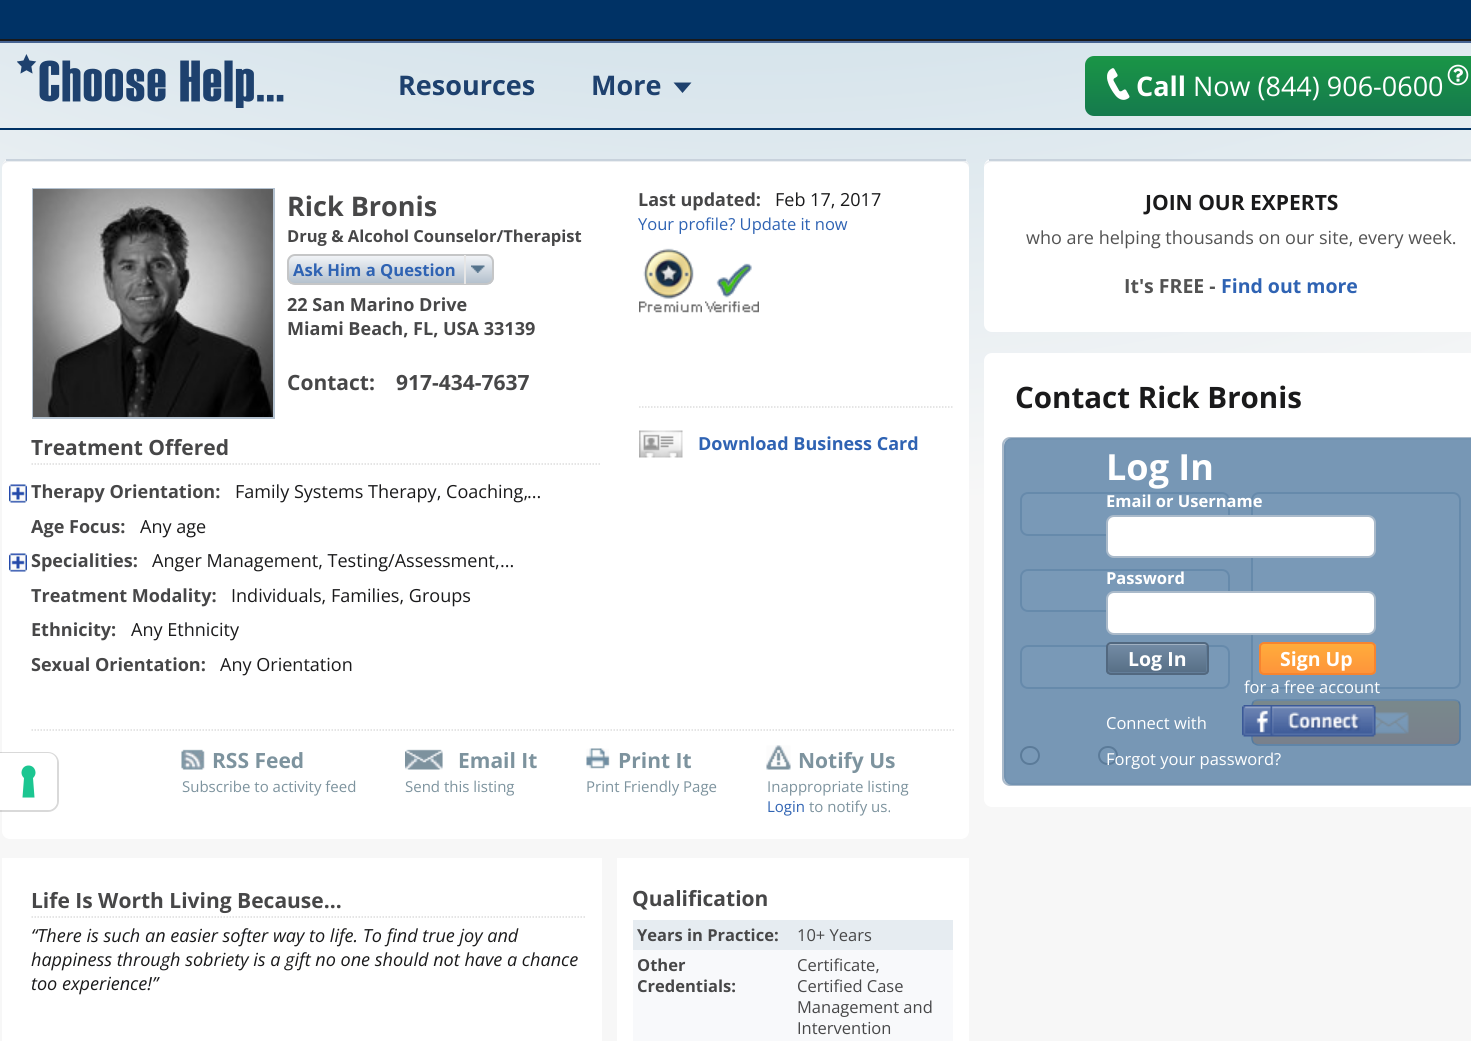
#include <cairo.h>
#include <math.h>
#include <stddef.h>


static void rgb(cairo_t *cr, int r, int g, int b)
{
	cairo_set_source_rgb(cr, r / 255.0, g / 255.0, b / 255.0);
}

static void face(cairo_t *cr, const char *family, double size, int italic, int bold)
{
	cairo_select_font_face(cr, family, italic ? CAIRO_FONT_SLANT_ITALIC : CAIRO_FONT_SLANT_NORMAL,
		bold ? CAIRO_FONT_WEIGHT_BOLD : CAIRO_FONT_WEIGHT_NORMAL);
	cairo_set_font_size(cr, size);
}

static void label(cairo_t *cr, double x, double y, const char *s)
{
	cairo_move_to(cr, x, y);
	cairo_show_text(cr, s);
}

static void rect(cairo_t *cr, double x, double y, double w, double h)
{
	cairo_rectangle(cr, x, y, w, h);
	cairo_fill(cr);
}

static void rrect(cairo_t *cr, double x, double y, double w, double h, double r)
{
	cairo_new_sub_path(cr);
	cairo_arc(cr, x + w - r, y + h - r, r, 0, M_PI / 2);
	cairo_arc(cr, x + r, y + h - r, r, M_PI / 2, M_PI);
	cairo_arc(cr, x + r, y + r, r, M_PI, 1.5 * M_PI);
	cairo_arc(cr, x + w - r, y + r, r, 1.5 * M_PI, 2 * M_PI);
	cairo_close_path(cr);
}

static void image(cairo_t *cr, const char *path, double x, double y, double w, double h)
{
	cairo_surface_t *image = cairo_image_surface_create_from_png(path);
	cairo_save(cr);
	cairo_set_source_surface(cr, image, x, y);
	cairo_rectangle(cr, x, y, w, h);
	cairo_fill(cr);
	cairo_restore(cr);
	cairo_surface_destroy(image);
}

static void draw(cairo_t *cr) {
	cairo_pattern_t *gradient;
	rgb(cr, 255, 255, 255);
	cairo_paint(cr);
	gradient = cairo_pattern_create_radial(750, -1928, 0, 750, -1928, 4070);
	cairo_pattern_add_color_stop_rgba(gradient, 0.25, 0.584, 0.745, 0.835, 1);
	cairo_pattern_add_color_stop_rgba(gradient, 0.6, 0.969, 0.969, 0.969, 1);
	cairo_set_source(cr, gradient);
	cairo_pattern_destroy(gradient);
	rect(cr, 0, 43, 1471, 998);
	rgb(cr, 255, 255, 255);
	rrect(cr, 2, 159, 967, 680, 8);
	cairo_fill(cr);
	cairo_new_path(cr);
	cairo_move_to(cr, 0, 753);
	cairo_line_to(cr, 48, 753);
	cairo_curve_to(cr, 53.5, 753, 58, 757.5, 58, 763);
	cairo_line_to(cr, 58, 801);
	cairo_curve_to(cr, 58, 806.5, 53.5, 811, 48, 811);
	cairo_line_to(cr, 0, 811);
	cairo_close_path(cr);
	cairo_set_source_rgba(cr, 0, 0, 0, 0.15);
	cairo_stroke(cr);
	rgb(cr, 255, 255, 255);
	cairo_new_path(cr);
	cairo_move_to(cr, 0, 753);
	cairo_line_to(cr, 48, 753);
	cairo_curve_to(cr, 53, 753, 57, 757, 57, 762);
	cairo_line_to(cr, 57, 801);
	cairo_curve_to(cr, 57, 806, 53, 810, 48, 810);
	cairo_line_to(cr, 0, 810);
	cairo_close_path(cr);
	cairo_fill(cr);
	rgb(cr, 28, 198, 145);
	cairo_set_fill_rule(cr, CAIRO_FILL_RULE_EVEN_ODD);
	cairo_new_path(cr);
	cairo_move_to(cr, 28.5, 765.5);
	cairo_curve_to(cr, 35, 765.5, 38, 773.5, 33, 778);
	cairo_line_to(cr, 34.5, 797.5);
	cairo_line_to(cr, 22.5, 797.5);
	cairo_line_to(cr, 24, 778);
	cairo_curve_to(cr, 19, 773.5, 22, 765.5, 28.5, 765.5);
	cairo_close_path(cr);
	cairo_fill(cr);
	rgb(cr, 0, 50, 101);
	rect(cr, 0, 0, 1471, 39);
	rect(cr, 0, 128, 1471, 2);
	rgb(cr, 25, 25, 26);
	rect(cr, 0, 39, 1471, 2);
	rgb(cr, 70, 99, 145);
	rect(cr, 0, 41, 1471, 2);
	image(cr, "image0.png", 17, 54, 267, 54);
	face(cr, "Open Sans", 27, 0, 1);
	rgb(cr, 30, 65, 110);
	label(cr, 398, 95, "Resources");
	label(cr, 591, 95, "More");
	cairo_set_fill_rule(cr, CAIRO_FILL_RULE_WINDING);
	cairo_new_path(cr);
	cairo_move_to(cr, 673.5, 82.5);
	cairo_line_to(cr, 691.5, 82.5);
	cairo_line_to(cr, 682.5, 93);
	cairo_close_path(cr);
	cairo_fill(cr);
	gradient = cairo_pattern_create_linear(1283, 55, 1283, 116);
	cairo_pattern_add_color_stop_rgba(gradient, 0, 0.102, 0.588, 0.275, 1);
	cairo_pattern_add_color_stop_rgba(gradient, 1, 0.082, 0.478, 0.302, 1);
	cairo_set_source(cr, gradient);
	cairo_pattern_destroy(gradient);
	rrect(cr, 1085, 56, 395, 60, 9);
	cairo_fill(cr);
	image(cr, "image1.png", 1107, 68, 23, 32);
	rgb(cr, 255, 255, 255);
	label(cr, 1136, 96, "Call");
	face(cr, "Open Sans", 27, 0, 0);
	label(cr, 1193, 96, "Now (844) 906-0600");
	image(cr, "image2.png", 1447, 64, 22, 22);
	rgb(cr, 235, 238, 241);
	cairo_new_path(cr);
	cairo_move_to(cr, 9, 162);
	cairo_line_to(cr, 962, 162);
	cairo_curve_to(cr, 966, 162, 969, 165, 969, 168);
	cairo_line_to(cr, 969, 166);
	cairo_curve_to(cr, 969, 163, 966, 160, 962, 160);
	cairo_line_to(cr, 9, 160);
	cairo_curve_to(cr, 5, 160, 2, 163, 2, 166);
	cairo_line_to(cr, 2, 831);
	cairo_line_to(cr, 2, 834);
	cairo_line_to(cr, 2, 168);
	cairo_curve_to(cr, 2, 164, 6, 162, 9, 162);
	cairo_close_path(cr);
	cairo_fill(cr);
	rgb(cr, 200, 210, 220);
	rect(cr, 6, 159, 960, 2);
	cairo_rectangle(cr, 33, 189, 241, 229);
	rgb(cr, 179, 193, 207);
	cairo_stroke(cr);
	image(cr, "image3.png", 33, 189, 240, 228);
	face(cr, "Open Sans", 27, 0, 1);
	rgb(cr, 71, 71, 72);
	label(cr, 287, 216, "Rick Bronis");
	face(cr, "Open Sans", 16.5, 0, 1);
	label(cr, 287, 242, "Drug & Alcohol Counselor/Therapist");
	cairo_save(cr);
	rrect(cr, 287, 254, 207, 31, 8);
	cairo_clip(cr);
	gradient = cairo_pattern_create_linear(390, 255, 390, 284);
	cairo_pattern_add_color_stop_rgba(gradient, 0, 0.953, 0.961, 0.973, 1);
	cairo_pattern_add_color_stop_rgba(gradient, 1, 0.698, 0.749, 0.8, 1);
	cairo_set_source(cr, gradient);
	cairo_pattern_destroy(gradient);
	rect(cr, 287, 255, 207, 29);
	cairo_restore(cr);
	rrect(cr, 288, 255, 205, 29, 7);
	rgb(cr, 197, 198, 199);
	cairo_stroke(cr);
	face(cr, "Open Sans", 16.6, 0, 1);
	rgb(cr, 47, 99, 179);
	label(cr, 293, 276, "Ask Him a Question");
	image(cr, "image4.png", 471, 265, 14, 8);
	rgb(cr, 230, 230, 230);
	rect(cr, 464, 255, 2, 29);
	face(cr, "Open Sans", 18.05, 0, 1);
	rgb(cr, 71, 71, 72);
	label(cr, 287, 311, "22 San Marino Drive");
	label(cr, 287, 335, "Miami Beach, FL, USA 33139");
	face(cr, "Open Sans", 21, 0, 1);
	label(cr, 287, 390, "Contact:");
	label(cr, 396, 390, "917-434-7637");
	cairo_new_path(cr);
	cairo_move_to(cr, 31.5, 464);
	cairo_line_to(cr, 601.5, 464);
	rgb(cr, 221, 221, 221);
	cairo_set_line_width(cr, 1.5);
	cairo_set_dash(cr, (double[]){1.5, 1.5}, 2, 0);
	cairo_stroke(cr);
	rgb(cr, 71, 71, 72);
	label(cr, 31, 455, "Treatment Offered");
	face(cr, "Open Sans", 18.05, 0, 1);
	label(cr, 31, 498, "Therapy Orientation:");
	image(cr, "image5.png", 9, 484, 18, 19);
	face(cr, "Open Sans", 18.05, 0, 0);
	rgb(cr, 26, 26, 27);
	label(cr, 235, 498, "Family Systems Therapy, Coaching,");
	label(cr, 527, 498, "...");
	face(cr, "Open Sans", 18.05, 0, 1);
	rgb(cr, 71, 71, 72);
	label(cr, 31, 533, "Age Focus:");
	face(cr, "Open Sans", 18.05, 0, 0);
	rgb(cr, 26, 26, 27);
	label(cr, 140, 533, "Any age");
	face(cr, "Open Sans", 18.05, 0, 1);
	rgb(cr, 71, 71, 72);
	label(cr, 31, 567, "Specialities:");
	image(cr, "image5.png", 9, 553, 18, 19);
	face(cr, "Open Sans", 18.05, 0, 0);
	rgb(cr, 26, 26, 27);
	label(cr, 152, 567, "Anger Management, Testing/Assessment,");
	label(cr, 500, 567, "...");
	face(cr, "Open Sans", 18.05, 0, 1);
	rgb(cr, 71, 71, 72);
	label(cr, 31, 602, "Treatment Modality:");
	face(cr, "Open Sans", 18.05, 0, 0);
	rgb(cr, 26, 26, 27);
	label(cr, 231, 602, "Individuals, Families, Groups");
	face(cr, "Open Sans", 18.05, 0, 1);
	rgb(cr, 71, 71, 72);
	label(cr, 31, 636, "Ethnicity:");
	face(cr, "Open Sans", 18.05, 0, 0);
	rgb(cr, 26, 26, 27);
	label(cr, 131, 636, "Any Ethnicity");
	face(cr, "Open Sans", 18.05, 0, 1);
	rgb(cr, 71, 71, 72);
	label(cr, 31, 671, "Sexual Orientation:");
	face(cr, "Open Sans", 18.05, 0, 0);
	rgb(cr, 26, 26, 27);
	label(cr, 220, 671, "Any Orientation");
	face(cr, "Open Sans", 18, 0, 1);
	rgb(cr, 71, 71, 72);
	label(cr, 638, 206, "Last updated:");
	face(cr, "Open Sans", 18, 0, 0);
	rgb(cr, 26, 26, 27);
	label(cr, 775, 206, "Feb 17, 2017");
	face(cr, "Open Sans", 16.5, 0, 0);
	rgb(cr, 47, 99, 179);
	label(cr, 638, 230, "Your profile? Update it now");
	image(cr, "image6.png", 639, 248, 63, 65);
	image(cr, "image7.png", 705, 263, 54, 50);
	cairo_new_path(cr);
	cairo_move_to(cr, 639, 407);
	cairo_line_to(cr, 954, 407);
	rgb(cr, 221, 221, 221);
	cairo_stroke(cr);
	image(cr, "image8.png", 639, 430, 44, 28);
	face(cr, "Open Sans", 18, 0, 1);
	rgb(cr, 47, 99, 179);
	label(cr, 698, 450, "Download Business Card");
	cairo_new_path(cr);
	cairo_move_to(cr, 31.5, 730);
	cairo_line_to(cr, 954, 730);
	rgb(cr, 221, 221, 221);
	cairo_stroke(cr);
	image(cr, "image9.png", 181, 749, 24, 21);
	face(cr, "Open Sans", 21, 0, 1);
	rgb(cr, 125, 147, 158);
	label(cr, 212, 768, "RSS Feed");
	face(cr, "Open Sans", 15, 0, 0);
	label(cr, 182, 792, "Subscribe to activity feed");
	image(cr, "image10.png", 405, 749, 38, 21);
	face(cr, "Open Sans", 21, 0, 1);
	label(cr, 458, 768, "Email It");
	face(cr, "Open Sans", 15, 0, 0);
	label(cr, 405, 792, "Send this listing");
	image(cr, "image11.png", 586, 748, 24, 21);
	face(cr, "Open Sans", 21, 0, 1);
	label(cr, 618, 768, "Print It");
	face(cr, "Open Sans", 15, 0, 0);
	label(cr, 586, 792, "Print Friendly Page");
	image(cr, "image12.png", 766, 745, 25, 25);
	face(cr, "Open Sans", 21, 0, 1);
	label(cr, 798, 768, "Notify Us");
	face(cr, "Open Sans", 15, 0, 0);
	label(cr, 767, 792, "Inappropriate listing");
	rgb(cr, 47, 99, 179);
	label(cr, 767, 812, "Login");
	rgb(cr, 125, 147, 158);
	label(cr, 809, 812, "to notify us.");
	rgb(cr, 255, 255, 255);
	rect(cr, 2, 858, 600, 183);
	cairo_new_path(cr);
	cairo_move_to(cr, 31.5, 917);
	cairo_line_to(cr, 586.5, 917);
	rgb(cr, 221, 221, 221);
	cairo_stroke(cr);
	face(cr, "Open Sans", 21, 0, 1);
	rgb(cr, 71, 71, 72);
	label(cr, 31, 908, "Life Is Worth Living Because...");
	face(cr, "Open Sans", 18.05, 1, 0);
	rgb(cr, 26, 26, 27);
	label(cr, 31, 942, "“There is such an easier softer way to life. To find true joy and");
	label(cr, 31, 966, "happiness through sobriety is a gift no one should not have a chance");
	label(cr, 31, 990, "too experience!”");
	rgb(cr, 255, 255, 255);
	rect(cr, 617, 858, 352, 183);
	face(cr, "Open Sans", 21, 0, 1);
	rgb(cr, 71, 71, 72);
	label(cr, 632, 906, "Qualification");
	rgb(cr, 230, 236, 241);
	rect(cr, 633, 920, 320, 30);
	face(cr, "Open Sans", 16.5, 0, 1);
	rgb(cr, 71, 71, 72);
	label(cr, 637, 941, "Years in Practice:");
	face(cr, "Open Sans", 16.5, 0, 0);
	label(cr, 797, 941, "10+ Years");
	rgb(cr, 248, 249, 251);
	rect(cr, 633, 950, 320, 91);
	face(cr, "Open Sans", 16.5, 0, 1);
	rgb(cr, 71, 71, 72);
	label(cr, 637, 971, "Other");
	label(cr, 637, 992, "Credentials:");
	face(cr, "Open Sans", 16.5, 0, 0);
	label(cr, 797, 971, "Certificate,");
	label(cr, 797, 992, "Certified Case");
	label(cr, 797, 1013, "Management and");
	label(cr, 797, 1034, "Intervention");
	rgb(cr, 255, 255, 255);
	rrect(cr, 984, 159, 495, 173, 8);
	cairo_fill(cr);
	rgb(cr, 235, 238, 241);
	cairo_new_path(cr);
	cairo_move_to(cr, 992, 162);
	cairo_line_to(cr, 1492, 162);
	cairo_curve_to(cr, 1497, 162, 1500, 165, 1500, 168);
	cairo_curve_to(cr, 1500, 163, 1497, 161, 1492, 160);
	cairo_line_to(cr, 992, 160);
	cairo_curve_to(cr, 987, 161, 984, 163, 984, 168);
	cairo_curve_to(cr, 984, 165, 987, 162, 992, 162);
	cairo_close_path(cr);
	cairo_fill(cr);
	rgb(cr, 200, 210, 220);
	rect(cr, 989, 159, 482, 2);
	face(cr, "Open Sans", 21, 0, 1);
	rgb(cr, 26, 26, 27);
	label(cr, 1145, 210, "JOIN OUR EXPERTS");
	face(cr, "Open Sans", 18, 0, 0);
	rgb(cr, 83, 83, 83);
	label(cr, 1026, 244, "who are helping thousands on our site, every week.");
	face(cr, "Open Sans", 19.5, 0, 1);
	label(cr, 1124, 293, "It's FREE -");
	rgb(cr, 47, 99, 179);
	label(cr, 1221, 293, "Find out more");
	rgb(cr, 255, 255, 255);
	rrect(cr, 984, 353, 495, 454, 8);
	cairo_fill(cr);
	face(cr, "Open Sans", 29.5, 0, 1);
	rgb(cr, 26, 26, 27);
	label(cr, 1015, 408, "Contact Rick Bronis");
	rgb(cr, 245, 245, 247);
	rrect(cr, 1003, 438, 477, 347, 7);
	cairo_fill_preserve(cr);
	rgb(cr, 170, 186, 202);
	cairo_set_line_width(cr, 2);
	cairo_set_dash(cr, NULL, 0, 0);
	cairo_stroke(cr);
	rgb(cr, 255, 255, 255);
	rrect(cr, 1021, 493, 208, 42, 7);
	cairo_fill_preserve(cr);
	rgb(cr, 170, 186, 202);
	cairo_stroke(cr);
	rgb(cr, 255, 255, 255);
	rrect(cr, 1252, 493, 208, 195, 7);
	cairo_fill_preserve(cr);
	rgb(cr, 170, 186, 202);
	cairo_stroke(cr);
	rgb(cr, 255, 255, 255);
	rrect(cr, 1021, 570, 208, 41, 7);
	cairo_fill_preserve(cr);
	rgb(cr, 170, 186, 202);
	cairo_stroke(cr);
	rgb(cr, 255, 255, 255);
	rrect(cr, 1021, 646, 208, 42, 7);
	cairo_fill_preserve(cr);
	rgb(cr, 170, 186, 202);
	cairo_stroke(cr);
	image(cr, "image14.png", 1252, 700, 208, 44);
	cairo_new_path(cr);
	cairo_move_to(cr, 1253.5, 701.5);
	cairo_curve_to(cr, 1255, 700.5, 1256.5, 700, 1258.5, 700);
	cairo_line_to(cr, 1453.5, 700);
	cairo_curve_to(cr, 1455.5, 700, 1457, 700.5, 1458.5, 701.5);
	rgb(cr, 149, 167, 187);
	cairo_set_line_width(cr, 1.5);
	cairo_stroke(cr);
	cairo_new_path(cr);
	cairo_move_to(cr, 1458.5, 701.5);
	cairo_curve_to(cr, 1459.5, 703, 1460, 704.5, 1460, 706.5);
	cairo_line_to(cr, 1460, 738);
	cairo_curve_to(cr, 1460, 740, 1459.5, 741.5, 1458.5, 743);
	rgb(cr, 80, 113, 146);
	cairo_stroke(cr);
	cairo_new_path(cr);
	cairo_move_to(cr, 1458.5, 743);
	cairo_curve_to(cr, 1457, 744, 1455.5, 745, 1453.5, 745);
	cairo_line_to(cr, 1258.5, 745);
	cairo_curve_to(cr, 1256.5, 745, 1255, 744, 1253.5, 743);
	rgb(cr, 107, 135, 163);
	cairo_stroke(cr);
	cairo_new_path(cr);
	cairo_move_to(cr, 1253.5, 743);
	cairo_curve_to(cr, 1252.5, 741.5, 1252, 740, 1252, 738);
	cairo_line_to(cr, 1252, 706.5);
	cairo_curve_to(cr, 1252, 704.5, 1252.5, 703, 1253.5, 701.5);
	rgb(cr, 80, 113, 146);
	cairo_stroke(cr);
	rgb(cr, 255, 255, 255);
	rrect(cr, 1021, 747, 18, 17, 8.5);
	cairo_fill_preserve(cr);
	rgb(cr, 118, 118, 118);
	cairo_set_line_width(cr, 2);
	cairo_stroke(cr);
	rgb(cr, 255, 255, 255);
	rrect(cr, 1099, 747, 18, 17, 8.5);
	cairo_fill_preserve(cr);
	rgb(cr, 118, 118, 118);
	cairo_stroke(cr);
	cairo_set_source_rgba(cr, 0.329, 0.49, 0.639, 0.78);
	rrect(cr, 1005, 439, 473, 345, 7);
	cairo_fill_preserve(cr);
	rgb(cr, 115, 147, 177);
	cairo_stroke(cr);
	face(cr, "Open Sans", 36, 0, 1);
	rgb(cr, 255, 255, 255);
	label(cr, 1106, 480, "Log In");
	face(cr, "Open Sans", 16.5, 0, 1);
	label(cr, 1106, 507, "Email or Username");
	rrect(cr, 1107, 516, 268, 41, 7);
	cairo_fill_preserve(cr);
	rgb(cr, 170, 186, 202);
	cairo_stroke(cr);
	rgb(cr, 255, 255, 255);
	label(cr, 1106, 584, "Password");
	rrect(cr, 1107, 592, 268, 42, 7);
	cairo_fill_preserve(cr);
	rgb(cr, 170, 186, 202);
	cairo_stroke(cr);
	cairo_save(cr);
	rrect(cr, 1106, 642, 103, 33, 5);
	cairo_clip(cr);
	gradient = cairo_pattern_create_linear(1157, 644, 1157, 674);
	cairo_pattern_add_color_stop_rgba(gradient, 0, 0.455, 0.549, 0.647, 1);
	cairo_pattern_add_color_stop_rgba(gradient, 1, 0.333, 0.427, 0.518, 1);
	cairo_set_source(cr, gradient);
	cairo_pattern_destroy(gradient);
	rect(cr, 1106, 644, 103, 30);
	cairo_restore(cr);
	rgb(cr, 99, 126, 153);
	cairo_new_path(cr);
	cairo_move_to(cr, 1203, 674);
	cairo_curve_to(cr, 1208.5, 674, 1208, 672.5, 1208, 667);
	cairo_line_to(cr, 1208, 651);
	cairo_curve_to(cr, 1208, 645.5, 1208.5, 644, 1203, 644);
	cairo_curve_to(cr, 1205, 644, 1206, 645, 1206, 646);
	cairo_line_to(cr, 1206, 670);
	cairo_curve_to(cr, 1206, 672, 1205, 674, 1203, 674);
	cairo_close_path(cr);
	cairo_fill(cr);
	cairo_new_path(cr);
	cairo_move_to(cr, 1108, 645);
	cairo_curve_to(cr, 1107, 645, 1107, 646, 1107, 647);
	cairo_line_to(cr, 1107, 671);
	cairo_curve_to(cr, 1107, 673, 1108, 674, 1110, 674);
	cairo_line_to(cr, 1205, 674);
	cairo_curve_to(cr, 1206, 674, 1208, 673, 1208, 671);
	cairo_line_to(cr, 1206, 672);
	cairo_line_to(cr, 1112, 672);
	cairo_curve_to(cr, 1108, 672, 1108, 669, 1108, 665);
	cairo_close_path(cr);
	cairo_fill(cr);
	rgb(cr, 160, 176, 193);
	cairo_new_path(cr);
	cairo_move_to(cr, 1110, 645);
	cairo_line_to(cr, 1204, 645);
	cairo_curve_to(cr, 1206, 645, 1208, 646, 1208, 648);
	cairo_curve_to(cr, 1208, 640, 1192, 644, 1189, 644);
	cairo_line_to(cr, 1126, 644);
	cairo_curve_to(cr, 1123, 644, 1107, 640, 1107, 648);
	cairo_curve_to(cr, 1107, 646, 1108, 645, 1110, 645);
	cairo_close_path(cr);
	cairo_fill(cr);
	rrect(cr, 1107, 643, 101, 31, 4);
	rgb(cr, 82, 104, 127);
	cairo_stroke(cr);
	face(cr, "Open Sans", 19.5, 0, 1);
	rgb(cr, 255, 255, 255);
	label(cr, 1128, 666, "Log In");
	cairo_save(cr);
	rrect(cr, 1259, 642, 117, 33, 5);
	cairo_clip(cr);
	gradient = cairo_pattern_create_linear(1317, 644, 1317, 674);
	cairo_pattern_add_color_stop_rgba(gradient, 0, 1, 0.675, 0.231, 1);
	cairo_pattern_add_color_stop_rgba(gradient, 1, 0.996, 0.58, 0.231, 1);
	cairo_set_source(cr, gradient);
	cairo_pattern_destroy(gradient);
	rect(cr, 1259, 644, 117, 30);
	cairo_restore(cr);
	rrect(cr, 1260, 643, 115, 31, 4);
	rgb(cr, 247, 132, 47);
	cairo_stroke(cr);
	rgb(cr, 255, 255, 255);
	label(cr, 1280, 666, "Sign Up");
	face(cr, "Open Sans", 16.5, 0, 0);
	label(cr, 1244, 693, "for a free account");
	label(cr, 1106, 729, "Connect with");
	image(cr, "image13.png", 1242, 705, 134, 32);
	label(cr, 1106, 765, "Forgot your password?");
}

int main(void) {
	cairo_surface_t *surface = cairo_image_surface_create(CAIRO_FORMAT_RGB24, 1471, 1041);
	cairo_t *cr = cairo_create(surface);
	cairo_font_options_t *options = cairo_font_options_create();
	cairo_font_options_set_hint_metrics(options, CAIRO_HINT_METRICS_OFF);
	cairo_font_options_set_hint_style(options, CAIRO_HINT_STYLE_NONE);
	cairo_set_font_options(cr, options);
	cairo_set_miter_limit(cr, 4);
	draw(cr);
	cairo_surface_write_to_png(surface, "render.png");
	cairo_font_options_destroy(options);
	cairo_destroy(cr);
	cairo_surface_destroy(surface);
	return 0;
}
